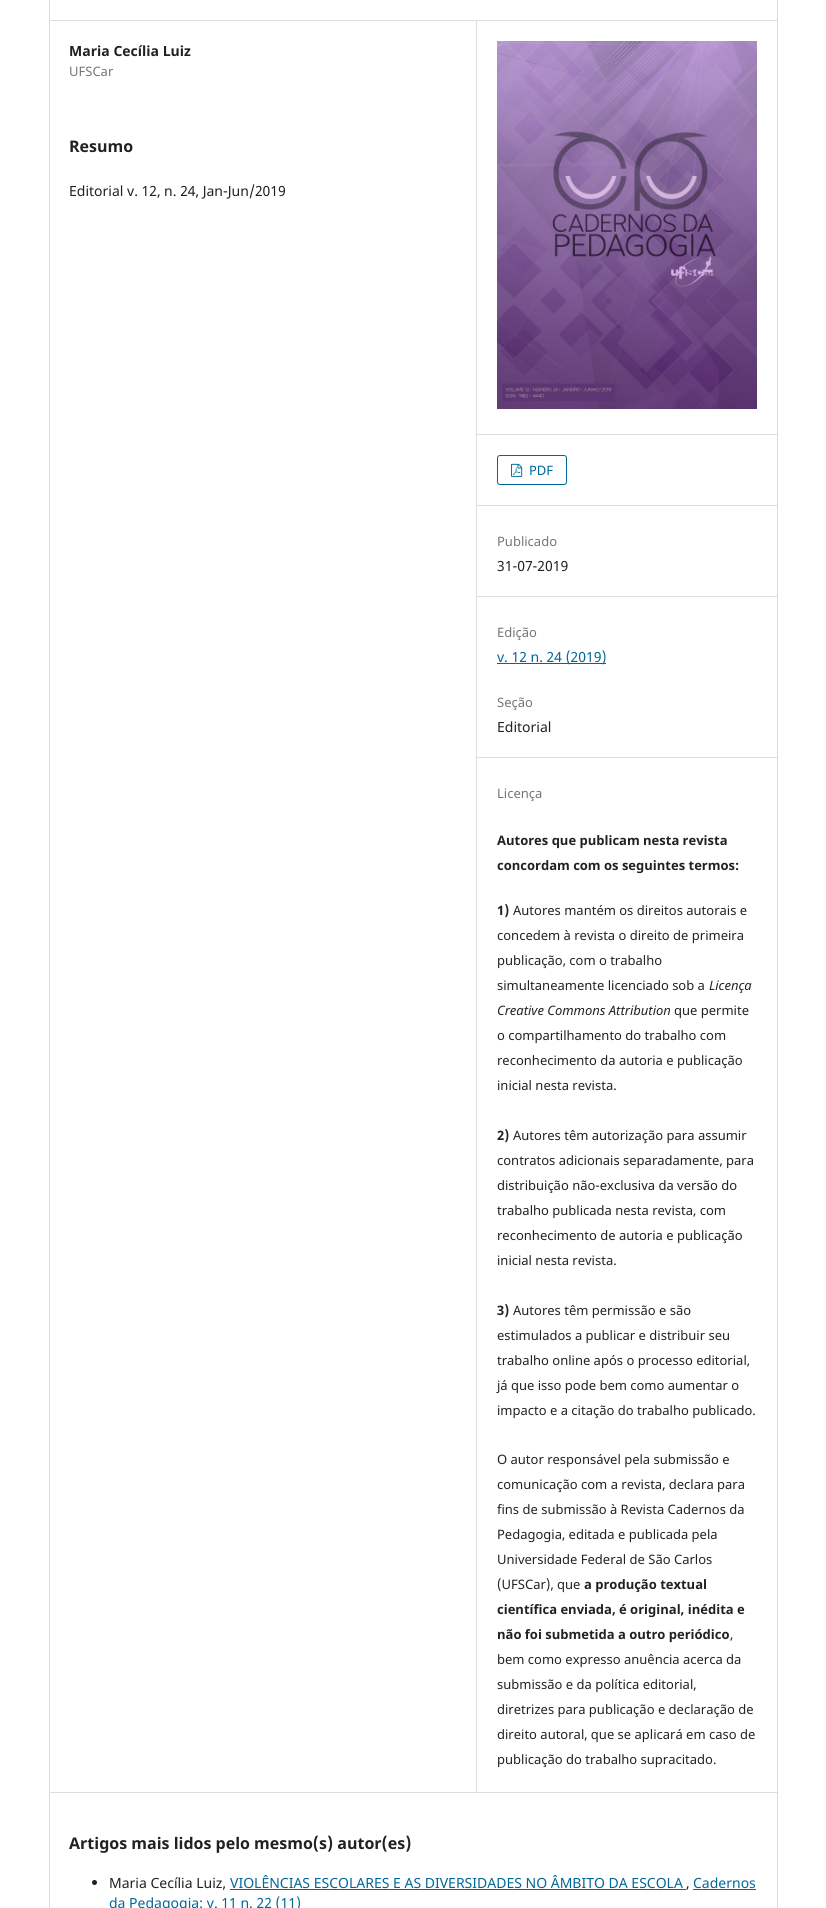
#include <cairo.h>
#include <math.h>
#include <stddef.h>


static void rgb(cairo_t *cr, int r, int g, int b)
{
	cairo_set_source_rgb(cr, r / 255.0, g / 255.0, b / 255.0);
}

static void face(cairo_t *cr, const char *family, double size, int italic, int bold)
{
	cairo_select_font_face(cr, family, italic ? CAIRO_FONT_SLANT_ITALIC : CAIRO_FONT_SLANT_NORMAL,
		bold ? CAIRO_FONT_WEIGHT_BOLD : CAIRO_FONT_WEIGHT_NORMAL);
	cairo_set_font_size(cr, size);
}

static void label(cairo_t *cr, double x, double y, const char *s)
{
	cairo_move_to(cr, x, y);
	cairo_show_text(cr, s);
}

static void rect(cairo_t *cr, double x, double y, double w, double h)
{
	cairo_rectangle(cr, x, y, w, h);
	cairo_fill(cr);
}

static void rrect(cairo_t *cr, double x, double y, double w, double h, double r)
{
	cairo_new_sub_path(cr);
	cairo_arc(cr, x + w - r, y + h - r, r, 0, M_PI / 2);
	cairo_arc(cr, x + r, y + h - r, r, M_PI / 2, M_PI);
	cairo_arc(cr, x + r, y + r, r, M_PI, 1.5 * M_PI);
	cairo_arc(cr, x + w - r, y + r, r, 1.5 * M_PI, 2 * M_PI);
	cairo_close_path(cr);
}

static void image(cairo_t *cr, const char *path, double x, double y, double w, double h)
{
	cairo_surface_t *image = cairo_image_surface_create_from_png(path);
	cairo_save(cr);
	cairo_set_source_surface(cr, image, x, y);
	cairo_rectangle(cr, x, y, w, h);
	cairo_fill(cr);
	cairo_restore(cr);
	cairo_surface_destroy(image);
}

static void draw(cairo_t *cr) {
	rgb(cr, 255, 255, 255);
	cairo_paint(cr);
	rgb(cr, 221, 221, 221);
	rect(cr, 49, 20, 728, 1);
	rect(cr, 49, 1792, 728, 1);
	rect(cr, 49, 0, 1, 1908);
	face(cr, "Noto Sans", 14, 0, 1);
	rgb(cr, 33, 33, 33);
	label(cr, 69, 56, "Maria Cecília Luiz");
	face(cr, "Noto Sans", 13, 0, 0);
	rgb(cr, 117, 117, 117);
	label(cr, 69, 76, "UFSCar");
	face(cr, "Noto Sans", 16, 0, 1);
	rgb(cr, 33, 33, 33);
	label(cr, 69, 152, "Resumo");
	face(cr, "Noto Sans", 14, 0, 0);
	label(cr, 69, 196, "Editorial v. 12, n. 24, Jan-Jun/2019");
	rgb(cr, 221, 221, 221);
	rect(cr, 476, 21, 1, 1771);
	rect(cr, 477, 434, 300, 1);
	image(cr, "image0.png", 497, 41, 260, 368);
	rect(cr, 477, 505, 300, 1);
	rrect(cr, 497.5, 455.5, 69, 29, 2.5);
	rgb(cr, 0, 103, 152);
	cairo_set_line_width(cr, 1);
	cairo_stroke(cr);
	image(cr, "image1.png", 511, 463, 12, 14);
	face(cr, "Noto Sans", 13, 0, 0);
	label(cr, 529, 475, "PDF");
	rgb(cr, 221, 221, 221);
	rect(cr, 477, 596, 300, 1);
	rgb(cr, 117, 117, 117);
	label(cr, 497, 546, "Publicado");
	face(cr, "Noto Sans", 14, 0, 0);
	rgb(cr, 33, 33, 33);
	label(cr, 497, 571, "31-07-2019");
	rgb(cr, 221, 221, 221);
	rect(cr, 477, 757, 300, 1);
	face(cr, "Noto Sans", 13, 0, 0);
	rgb(cr, 117, 117, 117);
	label(cr, 497, 637, "Edição");
	rgb(cr, 0, 103, 152);
	rect(cr, 497, 663, 109, 1);
	face(cr, "Noto Sans", 14, 0, 0);
	label(cr, 497, 662, "v. 12 n. 24 (2019)");
	face(cr, "Noto Sans", 13, 0, 0);
	rgb(cr, 117, 117, 117);
	label(cr, 497, 707, "Seção");
	face(cr, "Noto Sans", 14, 0, 0);
	rgb(cr, 33, 33, 33);
	label(cr, 497, 732, "Editorial");
	face(cr, "Noto Sans", 13, 0, 0);
	rgb(cr, 117, 117, 117);
	label(cr, 497, 798, "Licença");
	face(cr, "Noto Sans", 13, 0, 1);
	rgb(cr, 33, 33, 33);
	label(cr, 497, 845, "Autores que publicam nesta revista");
	label(cr, 497, 870, "concordam com os seguintes termos:");
	label(cr, 497, 915, "1)");
	face(cr, "Noto Sans", 13, 0, 0);
	label(cr, 513, 915, "Autores mantém os direitos autorais e");
	label(cr, 497, 940, "concedem à revista o direito de primeira");
	label(cr, 497, 965, "publicação, com o trabalho");
	label(cr, 497, 990, "simultaneamente licenciado sob a");
	face(cr, "Noto Sans", 13, 1, 0);
	label(cr, 709, 990, "Licença");
	label(cr, 497, 1015, "Creative Commons Attribution");
	face(cr, "Noto Sans", 13, 0, 0);
	label(cr, 674, 1015, "que permite");
	label(cr, 497, 1040, "o compartilhamento do trabalho com");
	label(cr, 497, 1065, "reconhecimento da autoria e publicação");
	label(cr, 497, 1090, "inicial nesta revista.");
	face(cr, "Noto Sans", 13, 0, 1);
	label(cr, 497, 1140, "2)");
	face(cr, "Noto Sans", 13, 0, 0);
	label(cr, 513, 1140, "Autores têm autorização para assumir");
	label(cr, 497, 1165, "contratos adicionais separadamente, para");
	label(cr, 497, 1190, "distribuição não-exclusiva da versão do");
	label(cr, 497, 1215, "trabalho publicada nesta revista, com");
	label(cr, 497, 1240, "reconhecimento de autoria e publicação");
	label(cr, 497, 1265, "inicial nesta revista.");
	face(cr, "Noto Sans", 13, 0, 1);
	label(cr, 497, 1315, "3)");
	face(cr, "Noto Sans", 13, 0, 0);
	label(cr, 513, 1315, "Autores têm permissão e são");
	label(cr, 497, 1340, "estimulados a publicar e distribuir seu");
	label(cr, 497, 1365, "trabalho online após o processo editorial,");
	label(cr, 497, 1390, "já que isso pode bem como aumentar o");
	label(cr, 497, 1415, "impacto e a citação do trabalho publicado.");
	label(cr, 497, 1464, "O autor responsável pela submissão e");
	label(cr, 497, 1489, "comunicação com a revista, declara para");
	label(cr, 497, 1514, "fins de submissão à Revista Cadernos da");
	label(cr, 497, 1539, "Pedagogia, editada e publicada pela");
	label(cr, 497, 1564, "Universidade Federal de São Carlos");
	label(cr, 497, 1589, "(UFSCar), que");
	face(cr, "Noto Sans", 13, 0, 1);
	label(cr, 584, 1589, "a produção textual");
	label(cr, 497, 1614, "científica enviada, é original, inédita e");
	label(cr, 497, 1639, "não foi submetida a outro periódico");
	face(cr, "Noto Sans", 13, 0, 0);
	label(cr, 730, 1639, ",");
	label(cr, 497, 1664, "bem como expresso anuência acerca da");
	label(cr, 497, 1689, "submissão e da política editorial,");
	label(cr, 497, 1714, "diretrizes para publicação e declaração de");
	label(cr, 497, 1739, "direito autoral, que se aplicará em caso de");
	label(cr, 497, 1764, "publicação do trabalho supracitado.");
	face(cr, "Noto Sans", 16, 0, 1);
	label(cr, 69, 1849, "Artigos mais lidos pelo mesmo(s) autor(es)");
	cairo_new_path(cr);
	cairo_arc(cr, 94.5, 1882.5, 2.5, 0, 2 * M_PI);
	cairo_fill(cr);
	face(cr, "Noto Sans", 14, 0, 0);
	label(cr, 109, 1888, "Maria Cecília Luiz,");
	rgb(cr, 0, 103, 152);
	label(cr, 230, 1888, "VIOLÊNCIAS ESCOLARES E AS DIVERSIDADES NO ÂMBITO DA ESCOLA");
	rect(cr, 230, 1889, 456, 1);
	label(cr, 693, 1888, "Cadernos");
	rect(cr, 693, 1889, 63, 1);
	rgb(cr, 33, 33, 33);
	label(cr, 686, 1888, ",");
	rgb(cr, 0, 103, 152);
	label(cr, 109, 1908, "da Pedagogia: v. 11 n. 22 (11)");
	rgb(cr, 221, 221, 221);
	rect(cr, 777, 0, 1, 1908);
}

int main(void) {
	cairo_surface_t *surface = cairo_image_surface_create(CAIRO_FORMAT_RGB24, 826, 1908);
	cairo_t *cr = cairo_create(surface);
	cairo_font_options_t *options = cairo_font_options_create();
	cairo_font_options_set_hint_metrics(options, CAIRO_HINT_METRICS_OFF);
	cairo_font_options_set_hint_style(options, CAIRO_HINT_STYLE_NONE);
	cairo_set_font_options(cr, options);
	cairo_set_miter_limit(cr, 4);
	draw(cr);
	cairo_surface_write_to_png(surface, "render.png");
	cairo_font_options_destroy(options);
	cairo_destroy(cr);
	cairo_surface_destroy(surface);
	return 0;
}
